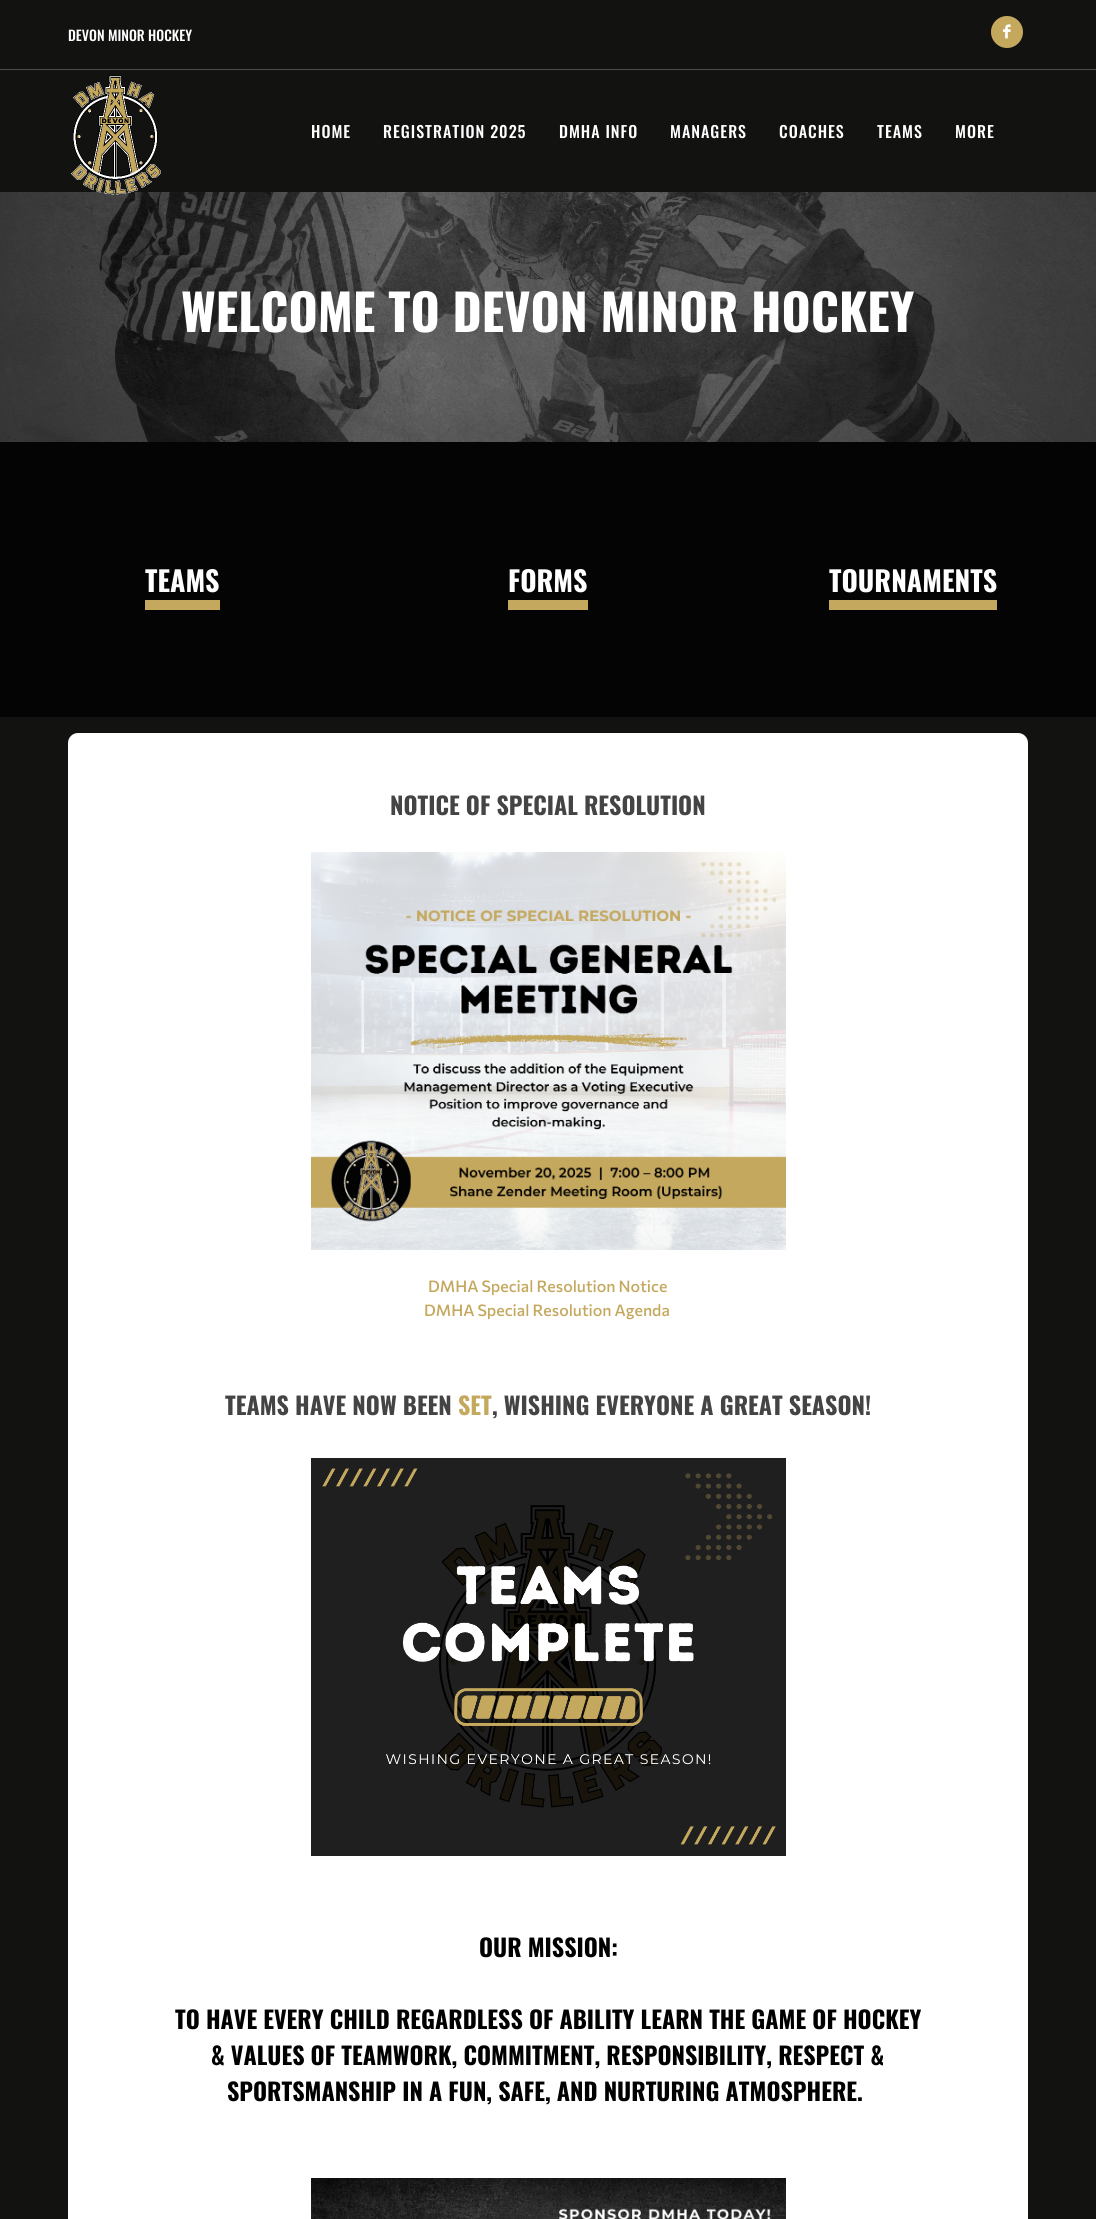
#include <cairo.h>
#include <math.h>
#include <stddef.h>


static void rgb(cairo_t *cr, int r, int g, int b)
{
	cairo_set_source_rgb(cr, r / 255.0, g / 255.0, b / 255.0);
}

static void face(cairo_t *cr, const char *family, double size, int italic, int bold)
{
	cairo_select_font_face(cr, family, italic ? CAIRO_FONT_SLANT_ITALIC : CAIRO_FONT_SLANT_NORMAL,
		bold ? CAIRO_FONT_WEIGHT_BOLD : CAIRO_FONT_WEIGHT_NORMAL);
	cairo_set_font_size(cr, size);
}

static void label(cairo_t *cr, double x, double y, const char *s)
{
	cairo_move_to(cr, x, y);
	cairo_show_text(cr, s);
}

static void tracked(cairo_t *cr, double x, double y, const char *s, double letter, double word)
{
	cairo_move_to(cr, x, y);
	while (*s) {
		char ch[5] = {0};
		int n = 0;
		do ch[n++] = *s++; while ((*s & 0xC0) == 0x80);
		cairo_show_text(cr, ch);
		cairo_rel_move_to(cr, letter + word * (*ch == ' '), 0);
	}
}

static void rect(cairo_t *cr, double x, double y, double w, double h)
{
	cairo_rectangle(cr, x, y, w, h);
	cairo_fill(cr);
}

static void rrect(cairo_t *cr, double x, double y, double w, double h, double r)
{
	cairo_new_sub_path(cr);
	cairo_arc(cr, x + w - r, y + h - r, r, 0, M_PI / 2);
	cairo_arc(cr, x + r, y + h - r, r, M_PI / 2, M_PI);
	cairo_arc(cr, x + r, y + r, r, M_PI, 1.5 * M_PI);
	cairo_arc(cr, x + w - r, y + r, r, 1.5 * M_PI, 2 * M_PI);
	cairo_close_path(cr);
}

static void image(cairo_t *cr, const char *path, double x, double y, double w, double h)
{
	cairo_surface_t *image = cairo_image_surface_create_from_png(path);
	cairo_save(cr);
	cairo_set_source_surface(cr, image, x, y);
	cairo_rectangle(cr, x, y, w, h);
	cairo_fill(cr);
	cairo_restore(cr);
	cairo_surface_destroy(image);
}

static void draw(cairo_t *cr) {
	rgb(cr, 18, 18, 17);
	cairo_paint(cr);
	face(cr, "Oswald Medium", 14, 0, 0);
	rgb(cr, 255, 255, 255);
	label(cr, 68, 41, "DEVON MINOR HOCKEY");
	rgb(cr, 196, 168, 94);
	cairo_new_path(cr);
	cairo_arc(cr, 1007, 32, 16, 0, 2 * M_PI);
	cairo_fill(cr);
	image(cr, "image0.png", 1003, 24, 8, 15);
	rgb(cr, 77, 77, 77);
	rect(cr, 0, 69, 1096, 1);
	image(cr, "image2.png", 0, 192, 1096, 250);
	image(cr, "image1.png", 71, 75, 90, 120);
	face(cr, "Oswald Medium", 16, 0, 0);
	rgb(cr, 255, 255, 255);
	tracked(cr, 311, 138, "HOME", 1, 0);
	tracked(cr, 383, 138, "REGISTRATION 2025", 1, 0);
	tracked(cr, 559, 138, "DMHA INFO", 1, 0);
	tracked(cr, 670, 138, "MANAGERS", 1, 0);
	tracked(cr, 779, 138, "COACHES", 1, 0);
	tracked(cr, 877, 138, "TEAMS", 1, 0);
	tracked(cr, 955, 138, "MORE", 1, 0);
	face(cr, "Oswald", 50, 0, 1);
	label(cr, 181, 332, "WELCOME TO DEVON MINOR HOCKEY");
	rgb(cr, 4, 4, 4);
	rect(cr, 0, 442, 1096, 275);
	face(cr, "Oswald", 28, 0, 1);
	rgb(cr, 255, 255, 255);
	label(cr, 145, 592, "TEAMS");
	rgb(cr, 196, 168, 94);
	rect(cr, 145, 600, 75, 10);
	rgb(cr, 255, 255, 255);
	label(cr, 508, 592, "FORMS");
	rgb(cr, 196, 168, 94);
	rect(cr, 508, 600, 80, 10);
	rgb(cr, 255, 255, 255);
	label(cr, 829, 592, "TOURNAMENTS");
	rgb(cr, 196, 168, 94);
	rect(cr, 829, 600, 168, 10);
	rgb(cr, 255, 255, 255);
	rrect(cr, 68, 733, 960, 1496, 10);
	cairo_fill(cr);
	face(cr, "Oswald", 24, 0, 1);
	rgb(cr, 68, 68, 68);
	label(cr, 390, 815, "NOTICE OF SPECIAL RESOLUTION");
	image(cr, "image3.png", 311, 852, 475, 398);
	face(cr, "Commissioner Medium", 16, 0, 0);
	rgb(cr, 196, 168, 94);
	label(cr, 428, 1292, "DMHA Special Resolution Notice");
	label(cr, 424, 1316, "DMHA Special Resolution Agenda");
	face(cr, "Oswald", 24, 0, 1);
	rgb(cr, 68, 68, 68);
	label(cr, 225, 1415, "TEAMS HAVE NOW BEEN");
	rgb(cr, 196, 168, 94);
	label(cr, 458, 1415, "SET");
	rgb(cr, 68, 68, 68);
	label(cr, 492, 1415, ", WISHING EVERYONE A GREAT SEASON!");
	image(cr, "image4.png", 311, 1458, 475, 398);
	rgb(cr, 0, 0, 0);
	label(cr, 479, 1957, "OUR MISSION:");
	label(cr, 175, 2029, "TO HAVE EVERY CHILD REGARDLESS OF ABILITY LEARN THE GAME OF HOCKEY");
	label(cr, 211, 2065, "& VALUES OF TEAMWORK, COMMITMENT, RESPONSIBILITY, RESPECT &");
	label(cr, 227, 2101, "SPORTSMANSHIP IN A FUN, SAFE, AND NURTURING ATMOSPHERE.");
	image(cr, "image5.png", 311, 2178, 475, 41);
}

int main(void) {
	cairo_surface_t *surface = cairo_image_surface_create(CAIRO_FORMAT_RGB24, 1096, 2219);
	cairo_t *cr = cairo_create(surface);
	cairo_font_options_t *options = cairo_font_options_create();
	cairo_font_options_set_hint_metrics(options, CAIRO_HINT_METRICS_OFF);
	cairo_font_options_set_hint_style(options, CAIRO_HINT_STYLE_NONE);
	cairo_set_font_options(cr, options);
	cairo_set_miter_limit(cr, 4);
	draw(cr);
	cairo_surface_write_to_png(surface, "render.png");
	cairo_font_options_destroy(options);
	cairo_destroy(cr);
	cairo_surface_destroy(surface);
	return 0;
}
